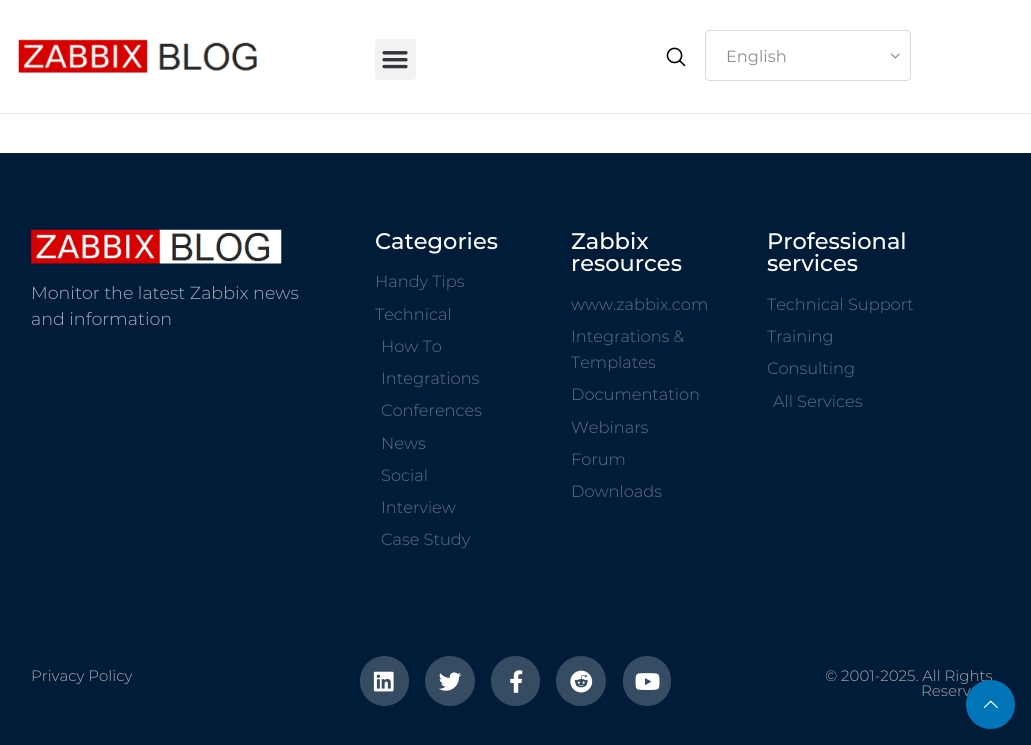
#include <cairo.h>
#include <math.h>
#include <stddef.h>


static void rgb(cairo_t *cr, int r, int g, int b)
{
	cairo_set_source_rgb(cr, r / 255.0, g / 255.0, b / 255.0);
}

static void face(cairo_t *cr, const char *family, double size, int italic, int bold)
{
	cairo_select_font_face(cr, family, italic ? CAIRO_FONT_SLANT_ITALIC : CAIRO_FONT_SLANT_NORMAL,
		bold ? CAIRO_FONT_WEIGHT_BOLD : CAIRO_FONT_WEIGHT_NORMAL);
	cairo_set_font_size(cr, size);
}

static void label(cairo_t *cr, double x, double y, const char *s)
{
	cairo_move_to(cr, x, y);
	cairo_show_text(cr, s);
}

static void rect(cairo_t *cr, double x, double y, double w, double h)
{
	cairo_rectangle(cr, x, y, w, h);
	cairo_fill(cr);
}

static void rrect(cairo_t *cr, double x, double y, double w, double h, double r)
{
	cairo_new_sub_path(cr);
	cairo_arc(cr, x + w - r, y + h - r, r, 0, M_PI / 2);
	cairo_arc(cr, x + r, y + h - r, r, M_PI / 2, M_PI);
	cairo_arc(cr, x + r, y + r, r, M_PI, 1.5 * M_PI);
	cairo_arc(cr, x + w - r, y + r, r, 1.5 * M_PI, 2 * M_PI);
	cairo_close_path(cr);
}

static void image(cairo_t *cr, const char *path, double x, double y, double w, double h)
{
	cairo_surface_t *image = cairo_image_surface_create_from_png(path);
	cairo_save(cr);
	cairo_set_source_surface(cr, image, x, y);
	cairo_rectangle(cr, x, y, w, h);
	cairo_fill(cr);
	cairo_restore(cr);
	cairo_surface_destroy(image);
}

static void draw(cairo_t *cr) {
	rgb(cr, 255, 255, 255);
	cairo_paint(cr);
	rgb(cr, 235, 235, 235);
	rect(cr, 0, 113, 1031, 1);
	image(cr, "image0.png", 18, 39, 240, 34);
	rgb(cr, 242, 242, 242);
	rrect(cr, 375, 39, 41, 41, 4);
	cairo_fill(cr);
	image(cr, "image1.png", 382, 51, 26, 18);
	image(cr, "image2.png", 666, 47, 20, 20);
	rrect(cr, 705.5, 30.5, 205, 50, 4.5);
	rgb(cr, 217, 217, 217);
	cairo_set_line_width(cr, 1);
	cairo_stroke(cr);
	face(cr, "Montserrat", 16.25, 0, 0);
	rgb(cr, 136, 143, 150);
	label(cr, 726, 62, "English");
	image(cr, "image3.png", 890, 53, 10, 6);
	rgb(cr, 0, 28, 56);
	rect(cr, 0, 153, 1031, 592);
	image(cr, "image4.png", 31, 229, 251, 35);
	face(cr, "Montserrat Light", 17.5, 0, 0);
	rgb(cr, 166, 176, 185);
	label(cr, 31, 299, "Monitor the latest Zabbix news");
	label(cr, 31, 325, "and information");
	face(cr, "Montserrat Medium", 22.5, 0, 0);
	rgb(cr, 255, 255, 255);
	label(cr, 375, 249, "Categories");
	face(cr, "Montserrat Light", 16.25, 0, 0);
	rgb(cr, 97, 114, 132);
	label(cr, 375, 287, "Handy Tips");
	label(cr, 375, 320, "Technical");
	label(cr, 381, 352, "How To");
	label(cr, 381, 384, "Integrations");
	label(cr, 381, 416, "Conferences");
	label(cr, 381, 449, "News");
	label(cr, 381, 481, "Social");
	label(cr, 381, 513, "Interview");
	label(cr, 381, 545, "Case Study");
	face(cr, "Montserrat Medium", 22.5, 0, 0);
	rgb(cr, 255, 255, 255);
	label(cr, 571, 249, "Zabbix");
	label(cr, 571, 271, "resources");
	face(cr, "Montserrat Light", 16.25, 0, 0);
	rgb(cr, 97, 114, 132);
	label(cr, 571, 310, "www.zabbix.com");
	label(cr, 571, 342, "Integrations &");
	label(cr, 571, 368, "Templates");
	label(cr, 571, 400, "Documentation");
	label(cr, 571, 433, "Webinars");
	label(cr, 571, 465, "Forum");
	label(cr, 571, 497, "Downloads");
	face(cr, "Montserrat Medium", 22.5, 0, 0);
	rgb(cr, 255, 255, 255);
	label(cr, 767, 249, "Professional");
	label(cr, 767, 271, "services");
	face(cr, "Montserrat Light", 16.25, 0, 0);
	rgb(cr, 97, 114, 132);
	label(cr, 767, 310, "Technical Support");
	label(cr, 767, 342, "Training");
	label(cr, 767, 374, "Consulting");
	label(cr, 773, 407, "All Services");
	face(cr, "Montserrat Light", 15, 0, 0);
	rgb(cr, 173, 173, 173);
	label(cr, 31, 681, "Privacy Policy");
	rgb(cr, 54, 76, 98);
	rrect(cr, 360, 656, 49, 50, 24.5);
	cairo_fill(cr);
	image(cr, "image5.png", 373, 671, 21, 21);
	cairo_arc(cr, 450, 681, 25, 0, 2 * M_PI);
	cairo_fill(cr);
	image(cr, "image6.png", 439, 672, 23, 19);
	rrect(cr, 491, 656, 49, 50, 24.5);
	cairo_fill(cr);
	image(cr, "image7.png", 510, 670, 13, 23);
	cairo_arc(cr, 581, 681, 25, 0, 2 * M_PI);
	cairo_fill(cr);
	image(cr, "image8.png", 570, 670, 23, 23);
	rrect(cr, 623, 656, 48, 50, 24);
	cairo_fill(cr);
	image(cr, "image9.png", 635, 673, 25, 17);
	rgb(cr, 173, 173, 173);
	label(cr, 825, 681, "© 2001-2025. All Rights");
	label(cr, 921, 696, "Reserv");
	rgb(cr, 2, 117, 184);
	cairo_new_path(cr);
	cairo_arc(cr, 990.5, 704.5, 24.5, 0, 2 * M_PI);
	cairo_fill(cr);
	image(cr, "image10.png", 983, 700, 15, 8);
}

int main(void) {
	cairo_surface_t *surface = cairo_image_surface_create(CAIRO_FORMAT_RGB24, 1031, 745);
	cairo_t *cr = cairo_create(surface);
	cairo_font_options_t *options = cairo_font_options_create();
	cairo_font_options_set_hint_metrics(options, CAIRO_HINT_METRICS_OFF);
	cairo_font_options_set_hint_style(options, CAIRO_HINT_STYLE_NONE);
	cairo_set_font_options(cr, options);
	cairo_set_miter_limit(cr, 4);
	draw(cr);
	cairo_surface_write_to_png(surface, "render.png");
	cairo_font_options_destroy(options);
	cairo_destroy(cr);
	cairo_surface_destroy(surface);
	return 0;
}
